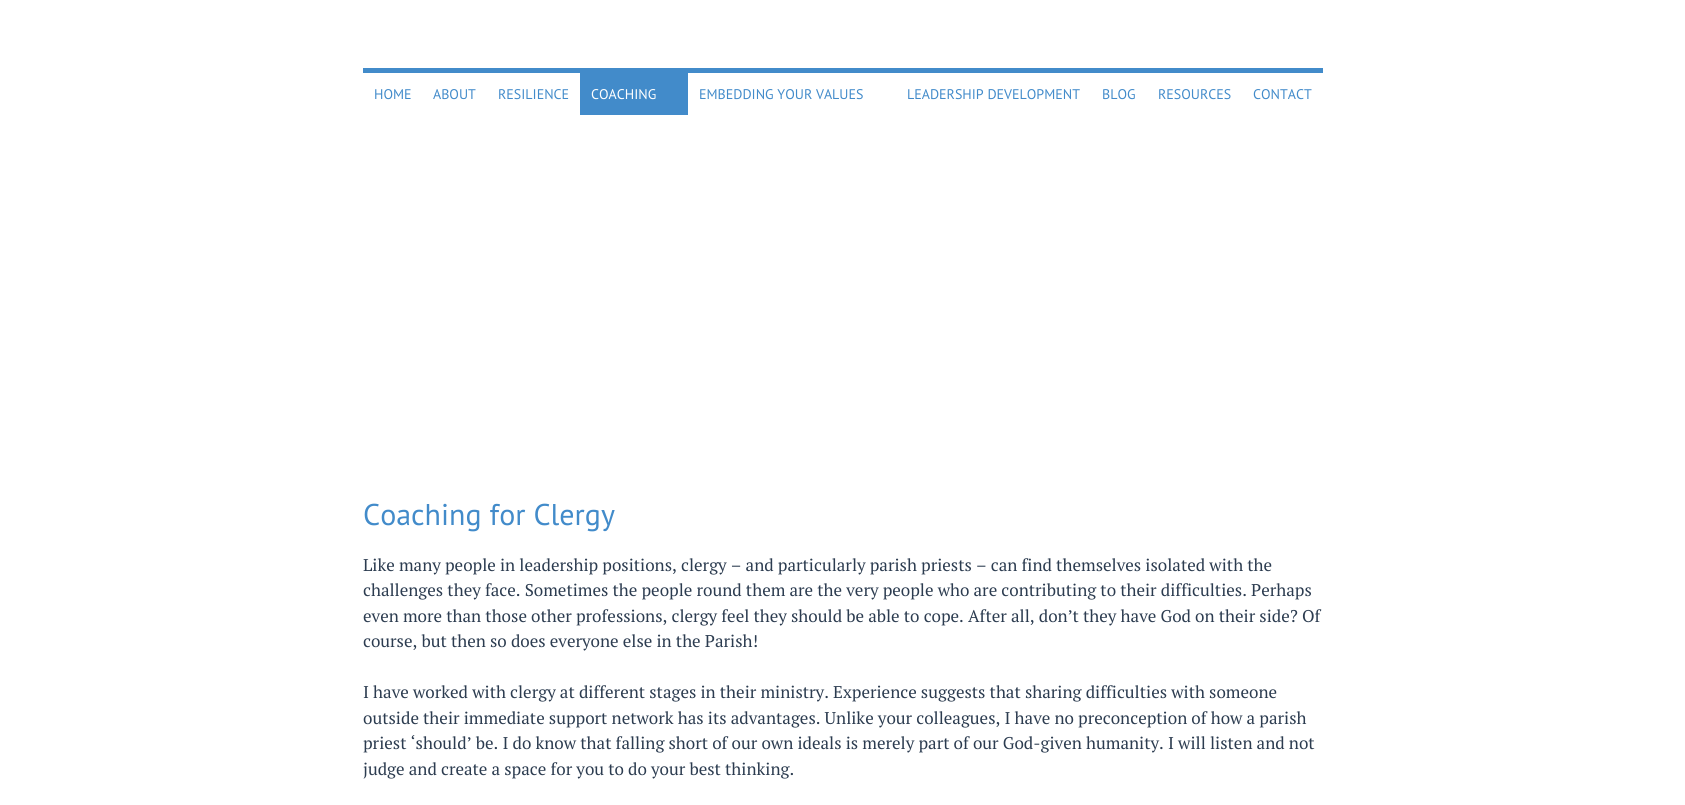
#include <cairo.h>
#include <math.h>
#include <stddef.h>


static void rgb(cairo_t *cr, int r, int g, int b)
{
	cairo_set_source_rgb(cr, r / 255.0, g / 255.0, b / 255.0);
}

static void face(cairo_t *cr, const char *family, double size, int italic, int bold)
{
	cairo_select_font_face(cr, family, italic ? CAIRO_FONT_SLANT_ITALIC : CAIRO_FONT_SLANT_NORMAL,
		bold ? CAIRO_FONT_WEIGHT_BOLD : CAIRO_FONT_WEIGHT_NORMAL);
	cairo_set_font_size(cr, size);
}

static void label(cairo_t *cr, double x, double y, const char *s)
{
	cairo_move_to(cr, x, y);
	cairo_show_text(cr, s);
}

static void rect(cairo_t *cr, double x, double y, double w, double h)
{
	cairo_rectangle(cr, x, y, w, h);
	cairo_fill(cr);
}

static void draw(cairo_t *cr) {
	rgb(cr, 255, 255, 255);
	cairo_paint(cr);
	rgb(cr, 66, 139, 202);
	rect(cr, 363, 68, 960, 5);
	face(cr, "PT Sans", 14, 0, 0);
	label(cr, 374, 99, "HOME");
	label(cr, 433, 99, "ABOUT");
	label(cr, 498, 99, "RESILIENCE");
	rect(cr, 580, 73, 108, 42);
	rgb(cr, 255, 255, 255);
	label(cr, 591, 99, "COACHING");
	rgb(cr, 66, 139, 202);
	label(cr, 699, 99, "EMBEDDING YOUR VALUES");
	label(cr, 907, 99, "LEADERSHIP DEVELOPMENT");
	label(cr, 1102, 99, "BLOG");
	label(cr, 1158, 99, "RESOURCES");
	label(cr, 1253, 99, "CONTACT");
	face(cr, "PT Sans", 30, 0, 0);
	label(cr, 363, 525, "Coaching for Clergy");
	face(cr, "PT Serif", 17, 0, 0);
	rgb(cr, 44, 60, 80);
	label(cr, 363, 571, "Like many people in leadership positions, clergy – and particularly parish priests – can find themselves isolated with the");
	label(cr, 363, 596, "challenges they face. Sometimes the people round them are the very people who are contributing to their difficulties. Perhaps");
	label(cr, 363, 622, "even more than those other professions, clergy feel they should be able to cope. After all, don’t they have God on their side? Of");
	label(cr, 363, 647, "course, but then so does everyone else in the Parish!");
	label(cr, 363, 698, "I have worked with clergy at different stages in their ministry. Experience suggests that sharing difficulties with someone");
	label(cr, 363, 724, "outside their immediate support network has its advantages. Unlike your colleagues, I have no preconception of how a parish");
	label(cr, 363, 749, "priest ‘should’ be. I do know that falling short of our own ideals is merely part of our God-given humanity. I will listen and not");
	label(cr, 363, 775, "judge and create a space for you to do your best thinking.");
}

int main(void) {
	cairo_surface_t *surface = cairo_image_surface_create(CAIRO_FORMAT_RGB24, 1685, 805);
	cairo_t *cr = cairo_create(surface);
	cairo_font_options_t *options = cairo_font_options_create();
	cairo_font_options_set_hint_metrics(options, CAIRO_HINT_METRICS_OFF);
	cairo_font_options_set_hint_style(options, CAIRO_HINT_STYLE_NONE);
	cairo_set_font_options(cr, options);
	cairo_set_miter_limit(cr, 4);
	draw(cr);
	cairo_surface_write_to_png(surface, "render.png");
	cairo_font_options_destroy(options);
	cairo_destroy(cr);
	cairo_surface_destroy(surface);
	return 0;
}
